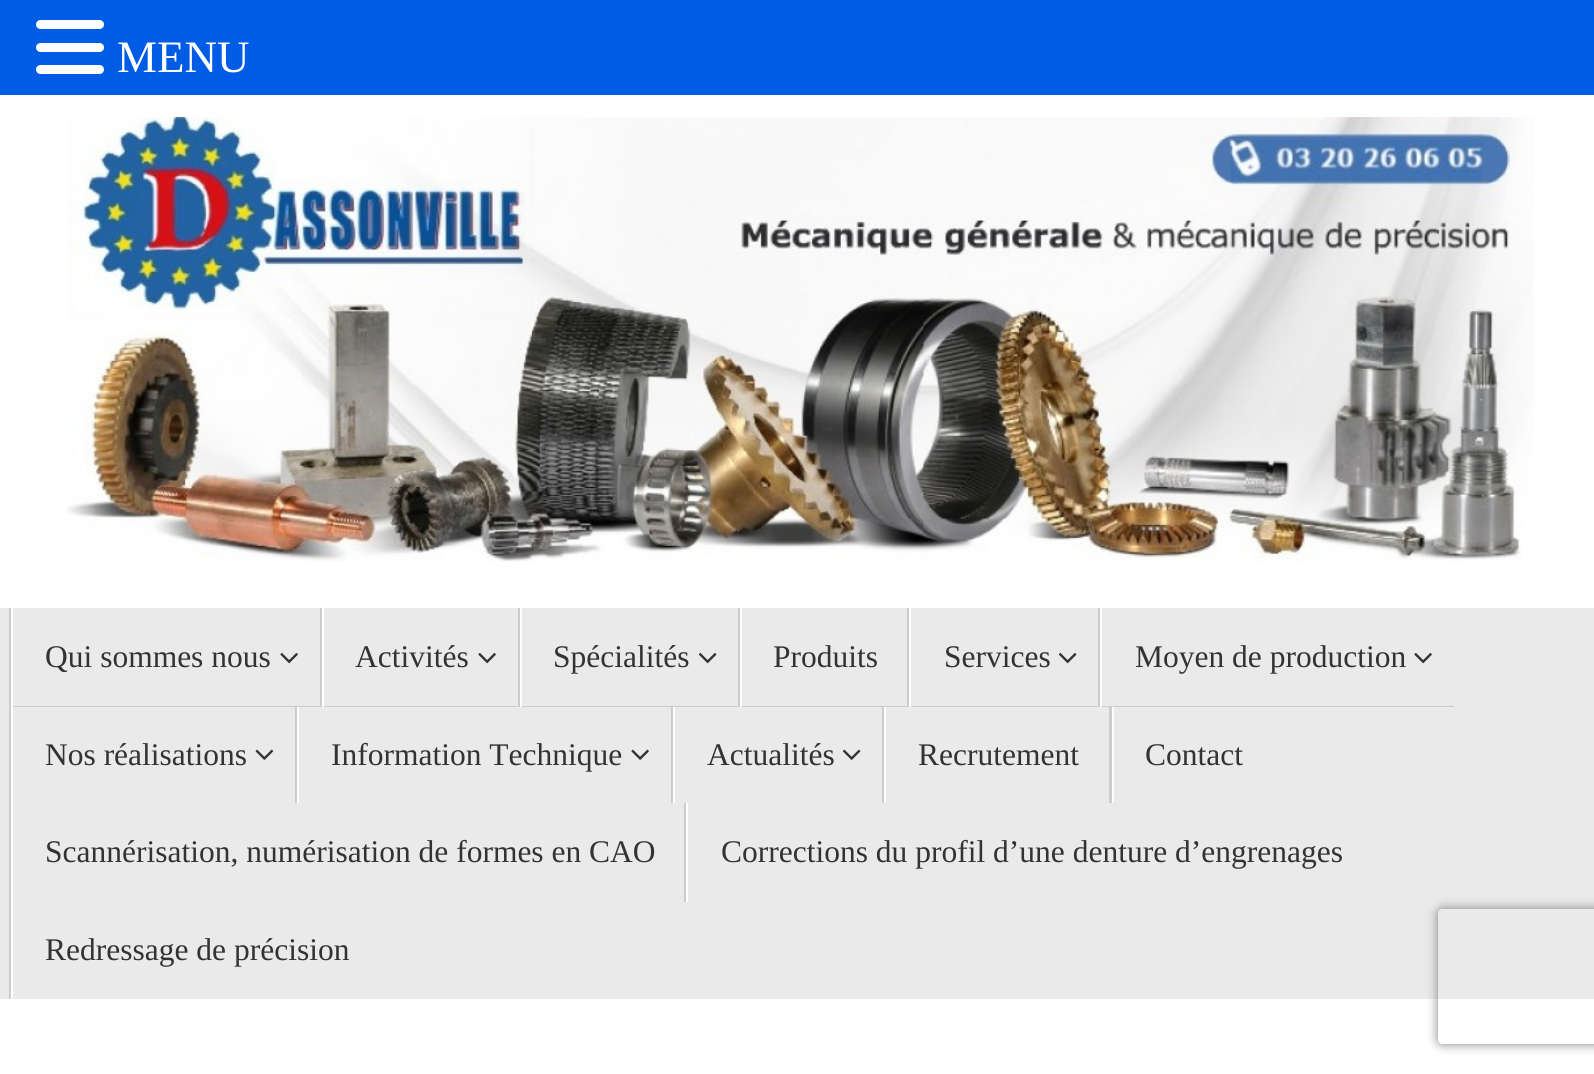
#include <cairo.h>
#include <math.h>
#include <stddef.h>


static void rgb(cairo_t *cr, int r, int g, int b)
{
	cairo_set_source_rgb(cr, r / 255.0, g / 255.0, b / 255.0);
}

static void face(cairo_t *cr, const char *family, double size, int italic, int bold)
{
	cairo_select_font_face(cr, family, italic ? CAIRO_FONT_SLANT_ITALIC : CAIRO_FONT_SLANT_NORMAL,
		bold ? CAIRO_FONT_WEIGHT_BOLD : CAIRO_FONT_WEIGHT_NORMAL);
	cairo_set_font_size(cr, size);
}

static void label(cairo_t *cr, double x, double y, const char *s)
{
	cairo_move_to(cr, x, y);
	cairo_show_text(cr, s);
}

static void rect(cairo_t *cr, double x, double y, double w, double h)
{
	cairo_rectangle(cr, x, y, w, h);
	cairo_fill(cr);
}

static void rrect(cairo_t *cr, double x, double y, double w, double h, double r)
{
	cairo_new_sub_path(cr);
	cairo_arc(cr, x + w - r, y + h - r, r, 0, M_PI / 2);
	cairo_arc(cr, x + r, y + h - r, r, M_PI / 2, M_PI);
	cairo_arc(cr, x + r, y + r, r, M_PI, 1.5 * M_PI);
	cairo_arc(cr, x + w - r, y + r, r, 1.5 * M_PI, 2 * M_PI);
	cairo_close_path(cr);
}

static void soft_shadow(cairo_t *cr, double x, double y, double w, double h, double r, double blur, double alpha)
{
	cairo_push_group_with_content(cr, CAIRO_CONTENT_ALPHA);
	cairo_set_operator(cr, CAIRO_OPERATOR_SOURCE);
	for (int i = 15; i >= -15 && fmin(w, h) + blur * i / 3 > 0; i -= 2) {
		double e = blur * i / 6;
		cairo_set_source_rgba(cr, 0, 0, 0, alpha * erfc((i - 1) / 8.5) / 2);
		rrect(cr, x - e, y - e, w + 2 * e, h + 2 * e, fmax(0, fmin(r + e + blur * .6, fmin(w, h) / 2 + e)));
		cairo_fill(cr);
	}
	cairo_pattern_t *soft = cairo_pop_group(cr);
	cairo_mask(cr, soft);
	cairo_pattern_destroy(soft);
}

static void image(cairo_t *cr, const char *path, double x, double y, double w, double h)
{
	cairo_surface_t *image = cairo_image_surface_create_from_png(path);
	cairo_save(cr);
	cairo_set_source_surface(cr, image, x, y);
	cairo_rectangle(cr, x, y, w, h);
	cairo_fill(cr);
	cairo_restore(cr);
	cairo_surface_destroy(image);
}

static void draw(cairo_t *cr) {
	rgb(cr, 255, 255, 255);
	cairo_paint(cr);
	rgb(cr, 0, 91, 229);
	rect(cr, 0, 0, 1594, 95);
	rgb(cr, 255, 255, 255);
	rrect(cr, 36, 20, 68, 9, 4.5);
	cairo_fill(cr);
	rrect(cr, 36, 43, 68, 9, 4.5);
	cairo_fill(cr);
	rrect(cr, 36, 65, 68, 9, 4.5);
	cairo_fill(cr);
	face(cr, "Liberation Serif", 45, 0, 0);
	label(cr, 117, 72, "MENU");
	image(cr, "image0.png", 66, 117, 1468, 445);
	rgb(cr, 234, 234, 234);
	rect(cr, 0, 608, 1594, 391);
	rgb(cr, 204, 204, 204);
	cairo_new_path(cr);
	cairo_move_to(cr, 9, 608);
	cairo_line_to(cr, 9, 707);
	cairo_line_to(cr, 320, 707);
	cairo_line_to(cr, 320, 706);
	cairo_line_to(cr, 11, 706);
	cairo_line_to(cr, 11, 608);
	cairo_close_path(cr);
	cairo_fill(cr);
	rgb(cr, 255, 255, 255);
	rect(cr, 11, 608, 2, 391);
	face(cr, "Liberation Serif", 31.5, 0, 0);
	rgb(cr, 51, 51, 51);
	label(cr, 45, 667, "Qui sommes nous");
	image(cr, "image1.png", 280, 653, 18, 11);
	rgb(cr, 204, 204, 204);
	cairo_new_path(cr);
	cairo_move_to(cr, 320, 608);
	cairo_line_to(cr, 320, 707);
	cairo_line_to(cr, 518, 707);
	cairo_line_to(cr, 518, 706);
	cairo_line_to(cr, 322, 706);
	cairo_line_to(cr, 322, 608);
	cairo_close_path(cr);
	cairo_fill(cr);
	rgb(cr, 255, 255, 255);
	rect(cr, 322, 608, 2, 99);
	rgb(cr, 51, 51, 51);
	label(cr, 355, 667, "Activités");
	image(cr, "image1.png", 478, 653, 18, 11);
	rgb(cr, 204, 204, 204);
	cairo_new_path(cr);
	cairo_move_to(cr, 518, 608);
	cairo_line_to(cr, 518, 707);
	cairo_line_to(cr, 738, 707);
	cairo_line_to(cr, 738, 706);
	cairo_line_to(cr, 520, 706);
	cairo_line_to(cr, 520, 608);
	cairo_close_path(cr);
	cairo_fill(cr);
	rgb(cr, 255, 255, 255);
	rect(cr, 520, 608, 2, 99);
	rgb(cr, 51, 51, 51);
	label(cr, 553, 667, "Spécialités");
	image(cr, "image2.png", 698, 653, 19, 11);
	rgb(cr, 204, 204, 204);
	cairo_new_path(cr);
	cairo_move_to(cr, 738, 608);
	cairo_line_to(cr, 738, 707);
	cairo_line_to(cr, 907, 707);
	cairo_line_to(cr, 907, 706);
	cairo_line_to(cr, 740, 706);
	cairo_line_to(cr, 740, 608);
	cairo_close_path(cr);
	cairo_fill(cr);
	rgb(cr, 255, 255, 255);
	rect(cr, 740, 608, 2, 99);
	rgb(cr, 51, 51, 51);
	label(cr, 773, 667, "Produits");
	rgb(cr, 204, 204, 204);
	cairo_new_path(cr);
	cairo_move_to(cr, 907, 608);
	cairo_line_to(cr, 907, 707);
	cairo_line_to(cr, 1098, 707);
	cairo_line_to(cr, 1098, 706);
	cairo_line_to(cr, 909, 706);
	cairo_line_to(cr, 909, 608);
	cairo_close_path(cr);
	cairo_fill(cr);
	rgb(cr, 255, 255, 255);
	rect(cr, 909, 608, 2, 99);
	rgb(cr, 51, 51, 51);
	label(cr, 944, 667, "Services");
	image(cr, "image2.png", 1058, 653, 19, 11);
	rgb(cr, 204, 204, 204);
	cairo_new_path(cr);
	cairo_move_to(cr, 1098, 608);
	cairo_line_to(cr, 1098, 707);
	cairo_line_to(cr, 1454, 707);
	cairo_line_to(cr, 1454, 706);
	cairo_line_to(cr, 1100, 706);
	cairo_line_to(cr, 1100, 608);
	cairo_close_path(cr);
	cairo_fill(cr);
	rgb(cr, 255, 255, 255);
	rect(cr, 1100, 608, 2, 99);
	rgb(cr, 51, 51, 51);
	label(cr, 1135, 667, "Moyen de production");
	image(cr, "image1.png", 1414, 653, 18, 11);
	rgb(cr, 204, 204, 204);
	rect(cr, 9, 707, 2, 96);
	rgb(cr, 51, 51, 51);
	label(cr, 45, 765, "Nos réalisations");
	image(cr, "image3.png", 255, 749, 19, 11);
	rgb(cr, 204, 204, 204);
	rect(cr, 295, 707, 2, 96);
	rgb(cr, 255, 255, 255);
	rect(cr, 297, 707, 2, 96);
	rgb(cr, 51, 51, 51);
	label(cr, 331, 765, "Information Technique");
	image(cr, "image4.png", 631, 749, 18, 11);
	rgb(cr, 204, 204, 204);
	rect(cr, 671, 707, 2, 96);
	rgb(cr, 255, 255, 255);
	rect(cr, 673, 707, 2, 96);
	rgb(cr, 51, 51, 51);
	label(cr, 707, 765, "Actualités");
	image(cr, "image5.png", 842, 749, 19, 11);
	rgb(cr, 204, 204, 204);
	rect(cr, 882, 707, 2, 96);
	rgb(cr, 255, 255, 255);
	rect(cr, 884, 707, 2, 96);
	rgb(cr, 51, 51, 51);
	label(cr, 918, 765, "Recrutement");
	rgb(cr, 204, 204, 204);
	rect(cr, 1109, 707, 3, 96);
	rgb(cr, 255, 255, 255);
	rect(cr, 1112, 707, 2, 96);
	rgb(cr, 51, 51, 51);
	label(cr, 1145, 765, "Contact");
	rgb(cr, 204, 204, 204);
	cairo_new_path(cr);
	cairo_move_to(cr, 9, 803);
	cairo_line_to(cr, 9, 902);
	cairo_line_to(cr, 11, 902);
	cairo_line_to(cr, 11, 803);
	cairo_line_to(cr, 684, 803);
	cairo_close_path(cr);
	cairo_fill(cr);
	rgb(cr, 51, 51, 51);
	label(cr, 45, 862, "Scannérisation, numérisation de formes en CAO");
	rgb(cr, 204, 204, 204);
	cairo_new_path(cr);
	cairo_move_to(cr, 684, 803);
	cairo_line_to(cr, 684, 902);
	cairo_line_to(cr, 686, 902);
	cairo_line_to(cr, 686, 803);
	cairo_line_to(cr, 1373, 803);
	cairo_close_path(cr);
	cairo_fill(cr);
	rgb(cr, 255, 255, 255);
	rect(cr, 686, 803, 2, 99);
	rgb(cr, 51, 51, 51);
	label(cr, 721, 862, "Corrections du profil d’une denture d’engrenages");
	rgb(cr, 204, 204, 204);
	cairo_new_path(cr);
	cairo_move_to(cr, 9, 902);
	cairo_line_to(cr, 9, 999);
	cairo_line_to(cr, 11, 999);
	cairo_line_to(cr, 11, 902);
	cairo_line_to(cr, 378, 902);
	cairo_close_path(cr);
	cairo_fill(cr);
	rgb(cr, 51, 51, 51);
	label(cr, 45, 960, "Redressage de précision");
	cairo_save(cr);
	cairo_set_fill_rule(cr, CAIRO_FILL_RULE_EVEN_ODD);
	cairo_new_path(cr);
	cairo_move_to(cr, 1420, 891);
	cairo_line_to(cr, 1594, 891);
	cairo_line_to(cr, 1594, 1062);
	cairo_line_to(cr, 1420, 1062);
	cairo_close_path(cr);
	cairo_move_to(cr, 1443, 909);
	cairo_line_to(cr, 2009, 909);
	cairo_curve_to(cr, 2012, 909, 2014, 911, 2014, 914);
	cairo_line_to(cr, 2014, 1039);
	cairo_curve_to(cr, 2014, 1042, 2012, 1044, 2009, 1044);
	cairo_line_to(cr, 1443, 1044);
	cairo_curve_to(cr, 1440, 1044, 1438, 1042, 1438, 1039);
	cairo_line_to(cr, 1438, 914);
	cairo_curve_to(cr, 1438, 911, 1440, 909, 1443, 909);
	cairo_close_path(cr);
	cairo_clip(cr);
	rgb(cr, 128, 128, 128);
	soft_shadow(cr, 1438, 909, 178, 135, 5, 5.5, 1);
	cairo_restore(cr);
}

int main(void) {
	cairo_surface_t *surface = cairo_image_surface_create(CAIRO_FORMAT_RGB24, 1594, 1074);
	cairo_t *cr = cairo_create(surface);
	cairo_font_options_t *options = cairo_font_options_create();
	cairo_font_options_set_hint_metrics(options, CAIRO_HINT_METRICS_OFF);
	cairo_font_options_set_hint_style(options, CAIRO_HINT_STYLE_NONE);
	cairo_set_font_options(cr, options);
	cairo_set_miter_limit(cr, 4);
	draw(cr);
	cairo_surface_write_to_png(surface, "render.png");
	cairo_font_options_destroy(options);
	cairo_destroy(cr);
	cairo_surface_destroy(surface);
	return 0;
}
